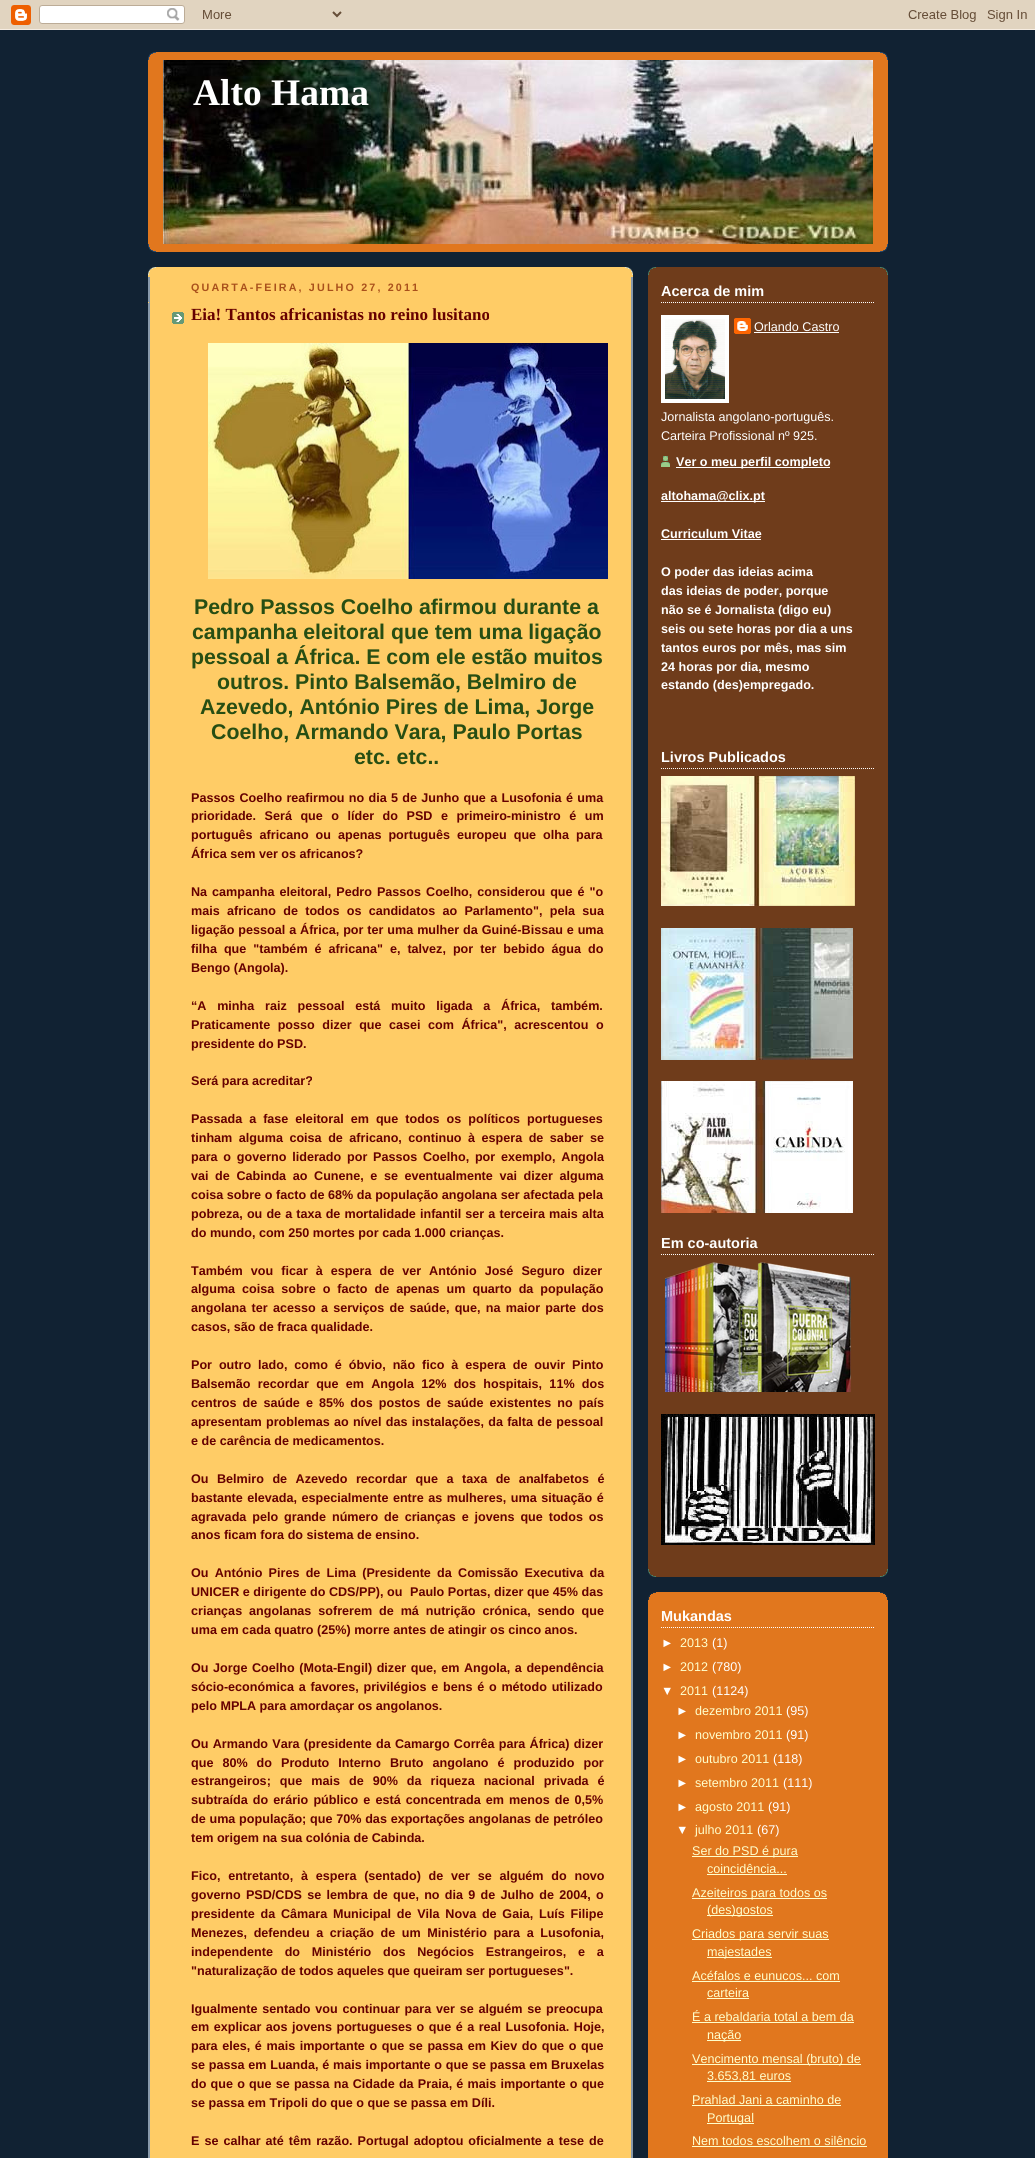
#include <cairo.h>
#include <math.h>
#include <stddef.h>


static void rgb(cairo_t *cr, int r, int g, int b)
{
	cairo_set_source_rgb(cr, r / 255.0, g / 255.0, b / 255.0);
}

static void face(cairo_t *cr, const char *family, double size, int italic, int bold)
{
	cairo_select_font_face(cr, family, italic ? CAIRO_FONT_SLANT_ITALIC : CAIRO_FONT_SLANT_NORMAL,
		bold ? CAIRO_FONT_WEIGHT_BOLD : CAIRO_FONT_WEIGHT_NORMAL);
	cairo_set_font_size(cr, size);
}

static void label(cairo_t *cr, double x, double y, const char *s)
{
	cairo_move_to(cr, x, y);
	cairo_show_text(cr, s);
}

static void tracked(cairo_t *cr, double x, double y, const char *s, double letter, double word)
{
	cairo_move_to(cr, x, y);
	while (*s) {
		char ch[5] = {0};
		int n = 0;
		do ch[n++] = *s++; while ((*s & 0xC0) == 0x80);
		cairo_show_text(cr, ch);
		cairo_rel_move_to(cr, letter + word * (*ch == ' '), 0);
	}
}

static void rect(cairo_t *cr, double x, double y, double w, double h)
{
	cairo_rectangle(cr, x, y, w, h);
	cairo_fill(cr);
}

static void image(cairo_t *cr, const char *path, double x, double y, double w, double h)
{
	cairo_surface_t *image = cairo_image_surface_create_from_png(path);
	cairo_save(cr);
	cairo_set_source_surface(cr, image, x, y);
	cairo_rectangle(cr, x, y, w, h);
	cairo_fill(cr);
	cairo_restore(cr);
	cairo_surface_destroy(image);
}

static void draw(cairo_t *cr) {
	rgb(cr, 17, 34, 51);
	cairo_paint(cr);
	image(cr, "image0.png", 0, 0, 1035, 30);
	rgb(cr, 225, 119, 30);
	rect(cr, 148, 52, 740, 200);
	image(cr, "image1.png", 148, 52, 740, 8);
	image(cr, "image2.png", 148, 244, 740, 8);
	image(cr, "image3.png", 163, 60, 710, 184);
	face(cr, "Liberation Serif", 37.5, 0, 1);
	rgb(cr, 255, 255, 255);
	label(cr, 193, 105, "Alto Hama");
	rgb(cr, 255, 204, 102);
	rect(cr, 148, 267, 485, 1891);
	image(cr, "image4.png", 148, 267, 485, 8);
	image(cr, "image5.png", 148, 277, 485, 1881);
	face(cr, "Liberation Sans", 10.75, 0, 1);
	rgb(cr, 169, 80, 27);
	tracked(cr, 191, 291, "QUARTA-FEIRA, JULHO 27, 2011", 2.15, 0);
	cairo_new_path(cr);
	cairo_move_to(cr, 148, 302.5);
	cairo_line_to(cr, 632, 302.5);
	rgb(cr, 255, 204, 102);
	cairo_set_line_width(cr, 1);
	cairo_set_dash(cr, (double[]){1, 1}, 2, 0);
	cairo_stroke(cr);
	image(cr, "image6.png", 172, 312, 12, 12);
	face(cr, "Liberation Serif", 17, 0, 1);
	rgb(cr, 102, 0, 0);
	label(cr, 191, 320, "Eia! Tantos africanistas no reino lusitano");
	image(cr, "image7.png", 208, 343, 400, 236);
	face(cr, "Liberation Sans", 21.3, 0, 1);
	rgb(cr, 39, 78, 19);
	label(cr, 194, 614, "Pedro Passos Coelho afirmou durante a");
	label(cr, 192, 639, "campanha eleitoral que tem uma ligação");
	label(cr, 191, 664, "pessoal a África. E com ele estão muitos");
	label(cr, 217, 689, "outros. Pinto Balsemão, Belmiro de");
	label(cr, 200, 714, "Azevedo, António Pires de Lima, Jorge");
	label(cr, 211, 739, "Coelho, Armando Vara, Paulo Portas");
	label(cr, 354, 764, "etc. etc..");
	face(cr, "Liberation Sans", 12.6, 0, 1);
	rgb(cr, 102, 0, 0);
	tracked(cr, 191, 802, "Passos Coelho reafirmou no dia 5 de Junho que a Lusofonia é uma", 0, 0.8);
	tracked(cr, 191, 820, "prioridade. Será que o líder do PSD e primeiro-ministro é um", 0, 5);
	tracked(cr, 191, 839, "português africano ou apenas português europeu que olha para", 0, 3.5);
	label(cr, 191, 858, "África sem ver os africanos?");
	tracked(cr, 191, 896, "Na campanha eleitoral, Pedro Passos Coelho, considerou que é \"o", 0, 1.5);
	tracked(cr, 191, 915, "mais africano de todos os candidatos ao Parlamento\", pela sua", 0, 3.75);
	tracked(cr, 191, 934, "ligação pessoal a África, por ter uma mulher da Guiné-Bissau e uma", 0, 0.4);
	tracked(cr, 191, 953, "filha que \"também é africana\" e, talvez, por ter bebido água do", 0, 3.5);
	label(cr, 191, 972, "Bengo (Angola).");
	tracked(cr, 191, 1010, "“A minha raiz pessoal está muito ligada a África, também.", 0, 7.25);
	tracked(cr, 191, 1029, "Praticamente posso dizer que casei com África\", acrescentou o", 0, 4);
	label(cr, 191, 1048, "presidente do PSD.");
	label(cr, 191, 1085, "Será para acreditar?");
	tracked(cr, 191, 1123, "Passada a fase eleitoral em que todos os políticos portugueses", 0, 3.5);
	tracked(cr, 191, 1142, "tinham alguma coisa de africano, continuo à espera de saber se", 0, 3);
	tracked(cr, 191, 1161, "para o governo liderado por Passos Coelho, por exemplo, Angola", 0, 2.25);
	tracked(cr, 191, 1180, "vai de Cabinda ao Cunene, e se eventualmente vai dizer alguma", 0, 3.1);
	tracked(cr, 191, 1199, "coisa sobre o facto de 68% da população angolana ser afectada pela", 0, 0.1);
	tracked(cr, 191, 1218, "pobreza, ou de a taxa de mortalidade infantil ser a terceira mais alta", 0, 0.6);
	label(cr, 191, 1237, "do mundo, com 250 mortes por cada 1.000 crianças.");
	tracked(cr, 191, 1275, "Também vou ficar à espera de ver António José Seguro dizer", 0, 4.5);
	tracked(cr, 191, 1293, "alguma coisa sobre o facto de apenas um quarto da população", 0, 3.5);
	tracked(cr, 191, 1312, "angolana ter acesso a serviços de saúde, que, na maior parte dos", 0, 1.75);
	label(cr, 191, 1331, "casos, são de fraca qualidade.");
	tracked(cr, 191, 1369, "Por outro lado, como é óbvio, não fico à espera de ouvir Pinto", 0, 3.4);
	tracked(cr, 191, 1388, "Balsemão recordar que em Angola 12% dos hospitais, 11% dos", 0, 3.75);
	tracked(cr, 191, 1407, "centros de saúde e 85% dos postos de saúde existentes no país", 0, 2.6);
	tracked(cr, 191, 1426, "apresentam problemas ao nível das instalações, da falta de pessoal", 0, 0.75);
	label(cr, 191, 1445, "e de carência de medicamentos.");
	tracked(cr, 191, 1483, "Ou Belmiro de Azevedo recordar que a taxa de analfabetos é", 0, 5);
	tracked(cr, 191, 1502, "bastante elevada, especialmente entre as mulheres, uma situação é", 0, 1);
	tracked(cr, 191, 1521, "agravada pelo grande número de crianças e jovens que todos os", 0, 2.4);
	label(cr, 191, 1539, "anos ficam fora do sistema de ensino.");
	tracked(cr, 191, 1577, "Ou António Pires de Lima (Presidente da Comissão Executiva da", 0, 2.75);
	label(cr, 191, 1596, "UNICER e dirigente do CDS/PP), ou");
	label(cr, 410, 1596, "Paulo Portas, dizer que 45% das");
	tracked(cr, 191, 1615, "crianças angolanas sofrerem de má nutrição crónica, sendo que", 0, 3.4);
	label(cr, 191, 1634, "uma em cada quatro (25%) morre antes de atingir os cinco anos.");
	tracked(cr, 191, 1672, "Ou Jorge Coelho (Mota-Engil) dizer que, em Angola, a dependência", 0, 1.1);
	tracked(cr, 191, 1691, "sócio-económica a favores, privilégios e bens é o método utilizado", 0, 1.25);
	label(cr, 191, 1710, "pelo MPLA para amordaçar os angolanos.");
	tracked(cr, 191, 1748, "Ou Armando Vara (presidente da Camargo Corrêa para África) dizer", 0, 0.75);
	tracked(cr, 191, 1767, "que 80% do Produto Interno Bruto angolano é produzido por", 0, 5.5);
	tracked(cr, 191, 1785, "estrangeiros; que mais de 90% da riqueza nacional privada é", 0, 5.5);
	tracked(cr, 191, 1804, "subtraída do erário público e está concentrada em menos de 0,5%", 0, 1.6);
	tracked(cr, 191, 1823, "de uma população; que 70% das exportações angolanas de petróleo", 0, 0.25);
	label(cr, 191, 1842, "tem origem na sua colónia de Cabinda.");
	tracked(cr, 191, 1880, "Fico, entretanto, à espera (sentado) de ver se alguém do novo", 0, 4.25);
	tracked(cr, 191, 1899, "governo PSD/CDS se lembra de que, no dia 9 de Julho de 2004, o", 0, 1.75);
	tracked(cr, 191, 1918, "presidente da Câmara Municipal de Vila Nova de Gaia, Luís Filipe", 0, 2.25);
	tracked(cr, 191, 1937, "Menezes, defendeu a criação de um Ministério para a Lusofonia,", 0, 3.1);
	tracked(cr, 191, 1956, "independente do Ministério dos Negócios Estrangeiros, e a", 0, 8.25);
	label(cr, 191, 1975, "\"naturalização de todos aqueles que queiram ser portugueses\".");
	tracked(cr, 191, 2013, "Igualmente sentado vou continuar para ver se alguém se preocupa", 0, 1.25);
	tracked(cr, 191, 2031, "em explicar aos jovens portugueses o que é a real Lusofonia. Hoje,", 0, 1);
	tracked(cr, 191, 2050, "para eles, é mais importante o que se passa em Kiev do que o que", 0, 1.1);
	tracked(cr, 191, 2069, "se passa em Luanda, é mais importante o que se passa em Bruxelas", 0, 0.25);
	tracked(cr, 191, 2088, "do que o que se passa na Cidade da Praia, é mais importante o que", 0, 0.7);
	label(cr, 191, 2107, "se passa em Tripoli do que o que se passa em Díli.");
	tracked(cr, 191, 2145, "E se calhar até têm razão. Portugal adoptou oficialmente a tese de", 0, 1.5);
	rgb(cr, 111, 60, 27);
	rect(cr, 648, 267, 240, 1310);
	image(cr, "image8.png", 648, 1569, 240, 8);
	image(cr, "image9.png", 648, 267, 240, 8);
	cairo_new_path(cr);
	cairo_move_to(cr, 661, 302.5);
	cairo_line_to(cr, 875, 302.5);
	rgb(cr, 255, 255, 255);
	cairo_stroke(cr);
	face(cr, "Liberation Sans", 14.5, 0, 1);
	label(cr, 661, 296, "Acerca de mim");
	cairo_rectangle(cr, 663, 317, 64, 84);
	cairo_set_line_width(cr, 4);
	cairo_set_dash(cr, NULL, 0, 0);
	cairo_stroke(cr);
	image(cr, "image10.png", 665, 319, 60, 80);
	image(cr, "image11.png", 734, 318, 17, 16);
	face(cr, "Liberation Sans", 12.6, 0, 0);
	label(cr, 754, 331, "Orlando Castro");
	rect(cr, 754, 332, 85, 1);
	label(cr, 661, 421, "Jornalista angolano-português.");
	label(cr, 661, 440, "Carteira Profissional nº 925.");
	image(cr, "image12.png", 661, 456, 9, 11);
	rect(cr, 676, 467, 154, 1);
	face(cr, "Liberation Sans", 12.6, 0, 1);
	label(cr, 676, 466, "Ver o meu perfil completo");
	rect(cr, 661, 501, 104, 1);
	label(cr, 661, 500, "altohama@clix.pt");
	label(cr, 661, 538, "Curriculum Vitae");
	rect(cr, 661, 539, 100, 1);
	label(cr, 661, 576, "O poder das ideias acima");
	label(cr, 661, 595, "das ideias de poder, porque");
	label(cr, 661, 614, "não se é Jornalista (digo eu)");
	label(cr, 661, 633, "seis ou sete horas por dia a uns");
	label(cr, 661, 652, "tantos euros por mês, mas sim");
	label(cr, 661, 671, "24 horas por dia, mesmo");
	label(cr, 661, 689, "estando (des)empregado.");
	cairo_new_path(cr);
	cairo_move_to(cr, 661, 768.5);
	cairo_line_to(cr, 875, 768.5);
	cairo_set_line_width(cr, 1);
	cairo_set_dash(cr, (double[]){1, 1}, 2, 0);
	cairo_stroke(cr);
	face(cr, "Liberation Sans", 14.5, 0, 1);
	label(cr, 661, 762, "Livros Publicados");
	image(cr, "image13.png", 661, 776, 194, 130);
	image(cr, "image14.png", 661, 928, 192, 132);
	image(cr, "image15.png", 661, 1081, 192, 132);
	cairo_new_path(cr);
	cairo_move_to(cr, 661, 1254.5);
	cairo_line_to(cr, 875, 1254.5);
	cairo_stroke(cr);
	label(cr, 661, 1248, "Em co-autoria");
	image(cr, "image16.png", 665, 1262, 186, 130);
	image(cr, "image17.png", 661, 1414, 214, 131);
	rgb(cr, 225, 119, 30);
	rect(cr, 648, 1592, 240, 566);
	image(cr, "image18.png", 648, 1592, 240, 8);
	cairo_new_path(cr);
	cairo_move_to(cr, 661, 1627.5);
	cairo_line_to(cr, 875, 1627.5);
	rgb(cr, 255, 255, 255);
	cairo_stroke(cr);
	label(cr, 661, 1621, "Mukandas");
	face(cr, "Liberation Sans", 12.6, 0, 0);
	label(cr, 661, 1647, "►");
	rgb(cr, 255, 255, 204);
	label(cr, 680, 1647, "2013");
	rgb(cr, 255, 255, 255);
	label(cr, 712, 1647, "(1)");
	label(cr, 661, 1671, "►");
	rgb(cr, 255, 255, 204);
	label(cr, 680, 1671, "2012");
	rgb(cr, 255, 255, 255);
	label(cr, 712, 1671, "(780)");
	label(cr, 661, 1695, "▼");
	rgb(cr, 255, 255, 204);
	label(cr, 680, 1695, "2011");
	rgb(cr, 255, 255, 255);
	label(cr, 712, 1695, "(1124)");
	label(cr, 676, 1715, "►");
	rgb(cr, 255, 255, 204);
	label(cr, 695, 1715, "dezembro 2011");
	rgb(cr, 255, 255, 255);
	label(cr, 786, 1715, "(95)");
	label(cr, 676, 1739, "►");
	rgb(cr, 255, 255, 204);
	label(cr, 695, 1739, "novembro 2011");
	rgb(cr, 255, 255, 255);
	label(cr, 786, 1739, "(91)");
	label(cr, 676, 1763, "►");
	rgb(cr, 255, 255, 204);
	label(cr, 695, 1763, "outubro 2011");
	rgb(cr, 255, 255, 255);
	label(cr, 773, 1763, "(118)");
	label(cr, 676, 1787, "►");
	rgb(cr, 255, 255, 204);
	label(cr, 695, 1787, "setembro 2011");
	rgb(cr, 255, 255, 255);
	label(cr, 783, 1787, "(111)");
	label(cr, 676, 1811, "►");
	rgb(cr, 255, 255, 204);
	label(cr, 695, 1811, "agosto 2011");
	rgb(cr, 255, 255, 255);
	label(cr, 768, 1811, "(91)");
	label(cr, 676, 1834, "▼");
	rgb(cr, 255, 255, 204);
	label(cr, 695, 1834, "julho 2011");
	rgb(cr, 255, 255, 255);
	label(cr, 757, 1834, "(67)");
	rgb(cr, 255, 255, 204);
	rect(cr, 692, 1856, 106, 1);
	label(cr, 692, 1855, "Ser do PSD é pura");
	label(cr, 707, 1873, "coincidência...");
	rect(cr, 707, 1874, 80, 1);
	rect(cr, 692, 1898, 135, 1);
	label(cr, 692, 1897, "Azeiteiros para todos os");
	rect(cr, 707, 1915, 66, 1);
	label(cr, 707, 1914, "(des)gostos");
	rect(cr, 692, 1939, 137, 1);
	label(cr, 692, 1938, "Criados para servir suas");
	rect(cr, 707, 1957, 65, 1);
	label(cr, 707, 1956, "majestades");
	label(cr, 692, 1980, "Acéfalos e eunucos... com");
	rect(cr, 692, 1981, 148, 1);
	label(cr, 707, 1997, "carteira");
	rect(cr, 707, 1998, 42, 1);
	label(cr, 692, 2021, "É a rebaldaria total a bem da");
	rect(cr, 692, 2022, 162, 1);
	rect(cr, 707, 2040, 34, 1);
	label(cr, 707, 2039, "nação");
	rect(cr, 692, 2064, 169, 1);
	label(cr, 692, 2063, "Vencimento mensal (bruto) de");
	rect(cr, 707, 2081, 84, 1);
	label(cr, 707, 2080, "3.653,81 euros");
	label(cr, 692, 2104, "Prahlad Jani a caminho de");
	rect(cr, 692, 2105, 149, 1);
	rect(cr, 707, 2123, 47, 1);
	label(cr, 707, 2122, "Portugal");
	label(cr, 692, 2145, "Nem todos escolhem o silêncio");
	rect(cr, 692, 2146, 175, 1);
}

int main(void) {
	cairo_surface_t *surface = cairo_image_surface_create(CAIRO_FORMAT_RGB24, 1035, 2158);
	cairo_t *cr = cairo_create(surface);
	cairo_font_options_t *options = cairo_font_options_create();
	cairo_font_options_set_hint_metrics(options, CAIRO_HINT_METRICS_OFF);
	cairo_font_options_set_hint_style(options, CAIRO_HINT_STYLE_NONE);
	cairo_set_font_options(cr, options);
	cairo_set_miter_limit(cr, 4);
	draw(cr);
	cairo_surface_write_to_png(surface, "render.png");
	cairo_font_options_destroy(options);
	cairo_destroy(cr);
	cairo_surface_destroy(surface);
	return 0;
}
